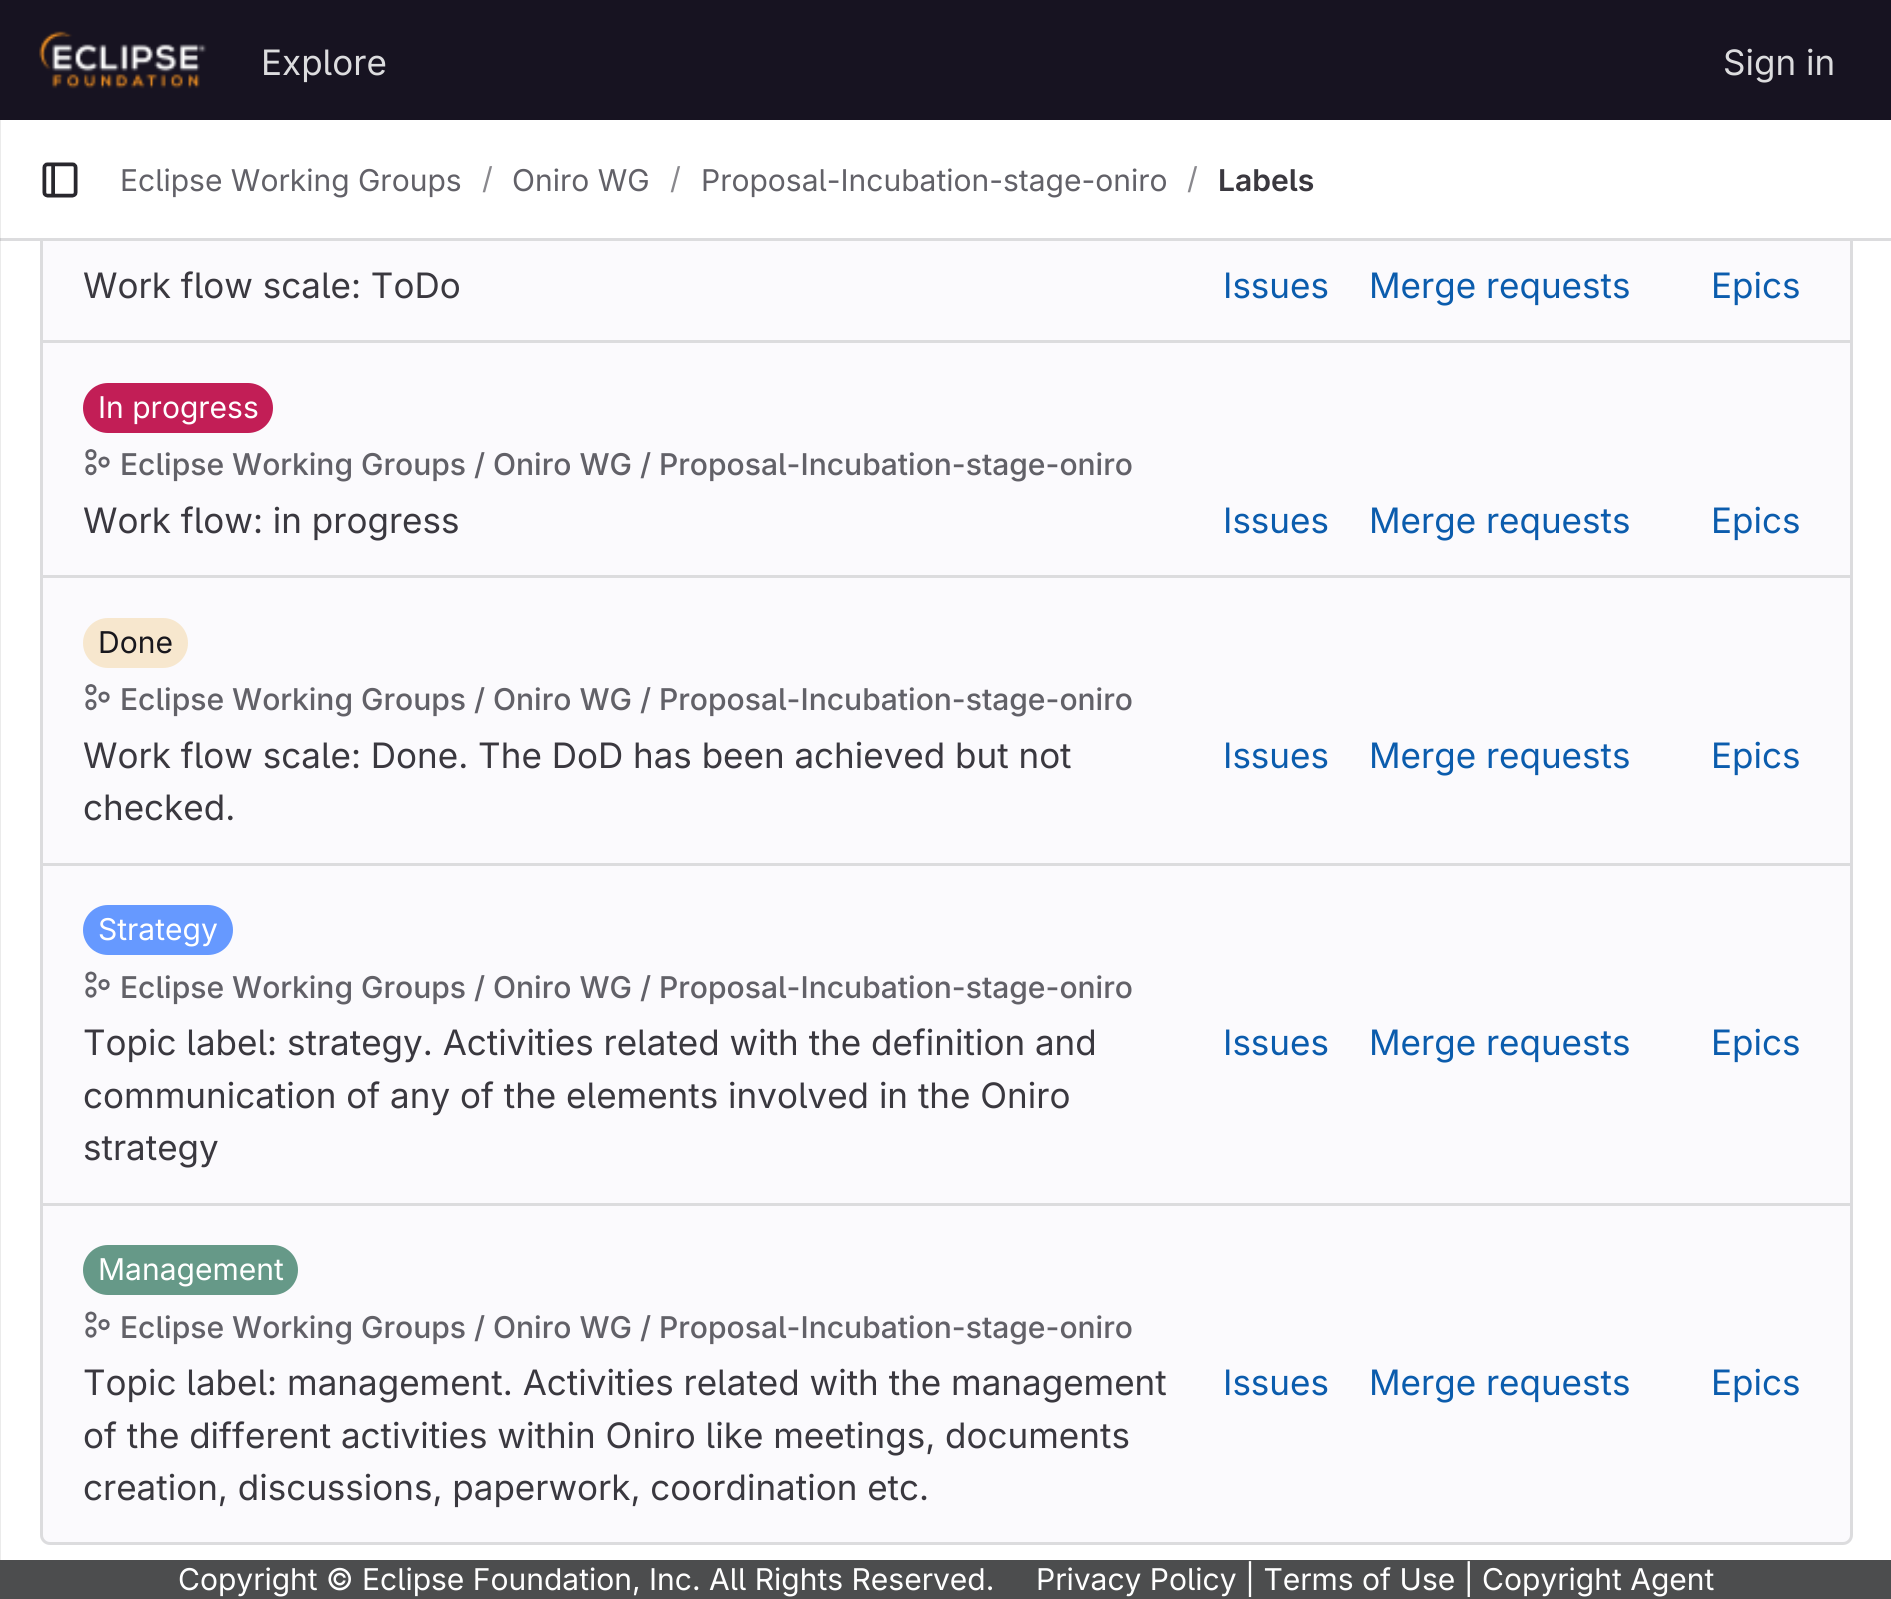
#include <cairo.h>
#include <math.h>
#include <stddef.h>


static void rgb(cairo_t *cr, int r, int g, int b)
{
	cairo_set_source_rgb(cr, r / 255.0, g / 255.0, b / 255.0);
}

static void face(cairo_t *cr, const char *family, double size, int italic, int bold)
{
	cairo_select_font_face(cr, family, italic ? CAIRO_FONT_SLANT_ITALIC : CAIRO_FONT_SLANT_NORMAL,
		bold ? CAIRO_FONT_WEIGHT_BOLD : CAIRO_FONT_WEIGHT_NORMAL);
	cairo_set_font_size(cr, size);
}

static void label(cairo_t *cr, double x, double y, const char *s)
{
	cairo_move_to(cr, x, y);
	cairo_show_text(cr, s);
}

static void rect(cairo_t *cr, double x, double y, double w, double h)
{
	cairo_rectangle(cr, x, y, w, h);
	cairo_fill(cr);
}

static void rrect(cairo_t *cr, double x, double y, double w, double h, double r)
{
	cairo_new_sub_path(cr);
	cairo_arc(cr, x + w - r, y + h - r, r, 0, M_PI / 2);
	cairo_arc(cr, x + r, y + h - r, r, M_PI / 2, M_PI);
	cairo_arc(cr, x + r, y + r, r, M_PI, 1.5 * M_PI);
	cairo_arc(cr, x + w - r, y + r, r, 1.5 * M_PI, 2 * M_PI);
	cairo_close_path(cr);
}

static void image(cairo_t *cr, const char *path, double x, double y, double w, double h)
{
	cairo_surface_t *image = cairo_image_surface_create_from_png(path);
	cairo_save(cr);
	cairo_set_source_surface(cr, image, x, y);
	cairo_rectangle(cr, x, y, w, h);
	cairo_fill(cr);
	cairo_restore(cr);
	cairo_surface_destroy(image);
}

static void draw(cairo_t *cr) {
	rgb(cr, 255, 255, 255);
	cairo_paint(cr);
	rgb(cr, 235, 235, 235);
	rect(cr, 0, 241, 1, 1319);
	rgb(cr, 251, 250, 253);
	rrect(cr, 41.5, -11.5, 1810, 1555, 8.5);
	cairo_fill_preserve(cr);
	rgb(cr, 220, 220, 222);
	cairo_set_line_width(cr, 3);
	cairo_stroke(cr);
	rgb(cr, 23, 19, 33);
	rect(cr, 0, 0, 1891, 120);
	image(cr, "image0.png", 39, 31, 168, 58);
	face(cr, "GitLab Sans", 35, 0, 0);
	rgb(cr, 220, 220, 222);
	label(cr, 261, 75, "Explore");
	label(cr, 1723, 75, "Sign in");
	rgb(cr, 255, 255, 255);
	rect(cr, 40, 120, 1813, 118);
	rgb(cr, 235, 235, 235);
	rect(cr, 0, 120, 1, 120);
	rgb(cr, 220, 220, 222);
	rect(cr, 0, 238, 1891, 3);
	rgb(cr, 203, 203, 205);
	rect(cr, 0, 238, 1, 3);
	image(cr, "image1.png", 42, 162, 36, 36);
	face(cr, "GitLab Sans", 30, 0, 0);
	rgb(cr, 98, 97, 104);
	label(cr, 120, 191, "Eclipse Working Groups");
	rgb(cr, 137, 136, 141);
	label(cr, 482, 189, "/");
	rgb(cr, 98, 97, 104);
	label(cr, 512, 191, "Oniro WG");
	rgb(cr, 137, 136, 141);
	label(cr, 670, 189, "/");
	rgb(cr, 98, 97, 104);
	label(cr, 701, 191, "Proposal-Incubation-stage-oniro");
	rgb(cr, 137, 136, 141);
	label(cr, 1187, 189, "/");
	face(cr, "GitLab Sans SemiBold", 30, 0, 0);
	rgb(cr, 58, 56, 63);
	label(cr, 1218, 191, "Labels");
	rgb(cr, 220, 220, 222);
	rect(cr, 43, 340, 1807, 3);
	face(cr, "GitLab Sans", 35, 0, 0);
	rgb(cr, 58, 56, 63);
	label(cr, 83, 298, "Work flow scale: ToDo");
	rgb(cr, 11, 92, 173);
	label(cr, 1223, 298, "Issues");
	label(cr, 1369, 298, "Merge requests");
	label(cr, 1711, 298, "Epics");
	rgb(cr, 220, 220, 222);
	rect(cr, 43, 575, 1807, 3);
	rgb(cr, 194, 30, 86);
	rrect(cr, 83, 383, 190, 50, 25);
	cairo_fill(cr);
	face(cr, "GitLab Sans", 30, 0, 0);
	rgb(cr, 255, 255, 255);
	label(cr, 98, 418, "In progress");
	image(cr, "image2.png", 85, 449, 25, 27);
	face(cr, "GitLab Sans Medium", 30, 0, 0);
	rgb(cr, 98, 97, 104);
	label(cr, 120, 475, "Eclipse Working Groups / Oniro WG / Proposal-Incubation-stage-oniro");
	face(cr, "GitLab Sans", 35, 0, 0);
	rgb(cr, 58, 56, 63);
	label(cr, 83, 533, "Work flow: in progress");
	rgb(cr, 11, 92, 173);
	label(cr, 1223, 533, "Issues");
	label(cr, 1369, 533, "Merge requests");
	label(cr, 1711, 533, "Epics");
	rgb(cr, 220, 220, 222);
	rect(cr, 43, 863, 1807, 3);
	rgb(cr, 247, 231, 206);
	rrect(cr, 83, 618, 105, 50, 25);
	cairo_fill(cr);
	face(cr, "GitLab Sans", 30, 0, 0);
	rgb(cr, 24, 23, 29);
	label(cr, 98, 653, "Done");
	image(cr, "image2.png", 85, 684, 25, 27);
	face(cr, "GitLab Sans Medium", 30, 0, 0);
	rgb(cr, 98, 97, 104);
	label(cr, 120, 710, "Eclipse Working Groups / Oniro WG / Proposal-Incubation-stage-oniro");
	face(cr, "GitLab Sans", 35, 0, 0);
	rgb(cr, 58, 56, 63);
	label(cr, 83, 768, "Work flow scale: Done. The DoD has been achieved but not");
	label(cr, 83, 820, "checked.");
	rgb(cr, 11, 92, 173);
	label(cr, 1223, 768, "Issues");
	label(cr, 1369, 768, "Merge requests");
	label(cr, 1711, 768, "Epics");
	rgb(cr, 220, 220, 222);
	rect(cr, 43, 1203, 1807, 3);
	rgb(cr, 102, 153, 255);
	rrect(cr, 83, 905, 150, 50, 25);
	cairo_fill(cr);
	face(cr, "GitLab Sans", 30, 0, 0);
	rgb(cr, 255, 255, 255);
	label(cr, 98, 940, "Strategy");
	image(cr, "image3.png", 85, 971, 25, 27);
	face(cr, "GitLab Sans Medium", 30, 0, 0);
	rgb(cr, 98, 97, 104);
	label(cr, 120, 998, "Eclipse Working Groups / Oniro WG / Proposal-Incubation-stage-oniro");
	face(cr, "GitLab Sans", 35, 0, 0);
	rgb(cr, 58, 56, 63);
	label(cr, 83, 1055, "Topic label: strategy. Activities related with the definition and");
	label(cr, 83, 1108, "communication of any of the elements involved in the Oniro");
	label(cr, 83, 1160, "strategy");
	rgb(cr, 11, 92, 173);
	label(cr, 1223, 1055, "Issues");
	label(cr, 1369, 1055, "Merge requests");
	label(cr, 1711, 1055, "Epics");
	rgb(cr, 102, 153, 136);
	rrect(cr, 83, 1245, 215, 50, 25);
	cairo_fill(cr);
	face(cr, "GitLab Sans", 30, 0, 0);
	rgb(cr, 255, 255, 255);
	label(cr, 98, 1280, "Management");
	image(cr, "image3.png", 85, 1311, 25, 27);
	face(cr, "GitLab Sans Medium", 30, 0, 0);
	rgb(cr, 98, 97, 104);
	label(cr, 120, 1338, "Eclipse Working Groups / Oniro WG / Proposal-Incubation-stage-oniro");
	face(cr, "GitLab Sans", 35, 0, 0);
	rgb(cr, 58, 56, 63);
	label(cr, 83, 1395, "Topic label: management. Activities related with the management");
	label(cr, 83, 1448, "of the different activities within Oniro like meetings, documents");
	label(cr, 83, 1500, "creation, discussions, paperwork, coordination etc.");
	rgb(cr, 11, 92, 173);
	label(cr, 1223, 1395, "Issues");
	label(cr, 1369, 1395, "Merge requests");
	label(cr, 1711, 1395, "Epics");
	rgb(cr, 76, 77, 78);
	rect(cr, 0, 1560, 1891, 39);
	face(cr, "GitLab Sans", 30, 0, 0);
	rgb(cr, 255, 255, 255);
	label(cr, 178, 1590, "Copyright © Eclipse Foundation, Inc. All Rights Reserved.");
	label(cr, 1036, 1590, "Privacy Policy | Terms of Use | Copyright Agent");
}

int main(void) {
	cairo_surface_t *surface = cairo_image_surface_create(CAIRO_FORMAT_RGB24, 1891, 1599);
	cairo_t *cr = cairo_create(surface);
	cairo_font_options_t *options = cairo_font_options_create();
	cairo_font_options_set_hint_metrics(options, CAIRO_HINT_METRICS_OFF);
	cairo_font_options_set_hint_style(options, CAIRO_HINT_STYLE_NONE);
	cairo_set_font_options(cr, options);
	cairo_set_miter_limit(cr, 4);
	draw(cr);
	cairo_surface_write_to_png(surface, "render.png");
	cairo_font_options_destroy(options);
	cairo_destroy(cr);
	cairo_surface_destroy(surface);
	return 0;
}
